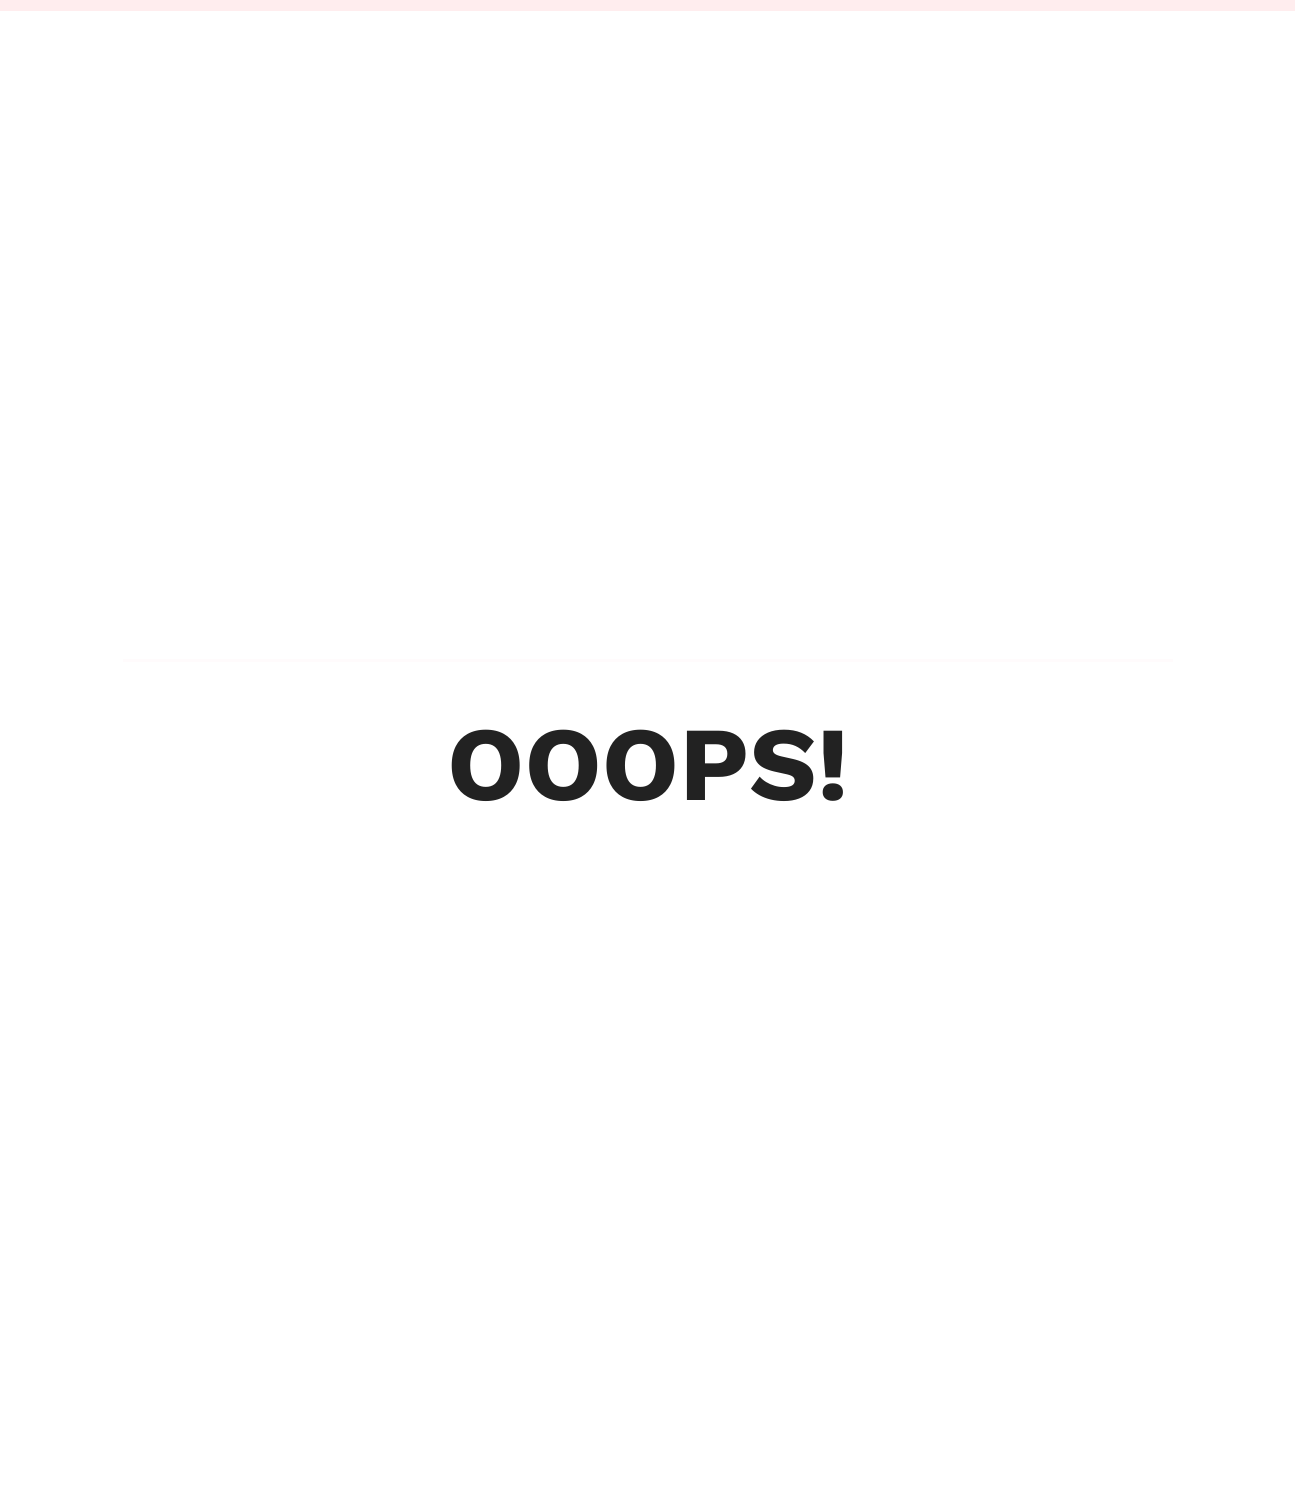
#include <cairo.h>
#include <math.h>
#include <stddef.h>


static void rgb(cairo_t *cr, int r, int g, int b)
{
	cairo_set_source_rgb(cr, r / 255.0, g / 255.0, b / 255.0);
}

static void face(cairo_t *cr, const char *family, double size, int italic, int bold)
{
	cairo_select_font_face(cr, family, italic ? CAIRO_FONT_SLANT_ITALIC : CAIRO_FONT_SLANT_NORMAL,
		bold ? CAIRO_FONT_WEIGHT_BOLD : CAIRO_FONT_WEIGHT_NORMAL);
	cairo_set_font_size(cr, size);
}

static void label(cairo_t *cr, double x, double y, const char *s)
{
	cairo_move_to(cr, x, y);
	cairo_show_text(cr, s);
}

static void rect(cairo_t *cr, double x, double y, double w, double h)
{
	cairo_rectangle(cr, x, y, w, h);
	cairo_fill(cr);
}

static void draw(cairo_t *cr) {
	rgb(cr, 255, 255, 255);
	cairo_paint(cr);
	rgb(cr, 255, 237, 238);
	rect(cr, 0, 0, 1295, 11);
	rgb(cr, 255, 251, 252);
	rect(cr, 123, 659, 1050, 3);
	face(cr, "Work Sans", 105, 0, 1);
	rgb(cr, 34, 34, 34);
	label(cr, 447, 800, "OOOPS!");
}

int main(void) {
	cairo_surface_t *surface = cairo_image_surface_create(CAIRO_FORMAT_RGB24, 1295, 1501);
	cairo_t *cr = cairo_create(surface);
	cairo_font_options_t *options = cairo_font_options_create();
	cairo_font_options_set_hint_metrics(options, CAIRO_HINT_METRICS_OFF);
	cairo_font_options_set_hint_style(options, CAIRO_HINT_STYLE_NONE);
	cairo_set_font_options(cr, options);
	cairo_set_miter_limit(cr, 4);
	draw(cr);
	cairo_surface_write_to_png(surface, "render.png");
	cairo_font_options_destroy(options);
	cairo_destroy(cr);
	cairo_surface_destroy(surface);
	return 0;
}
